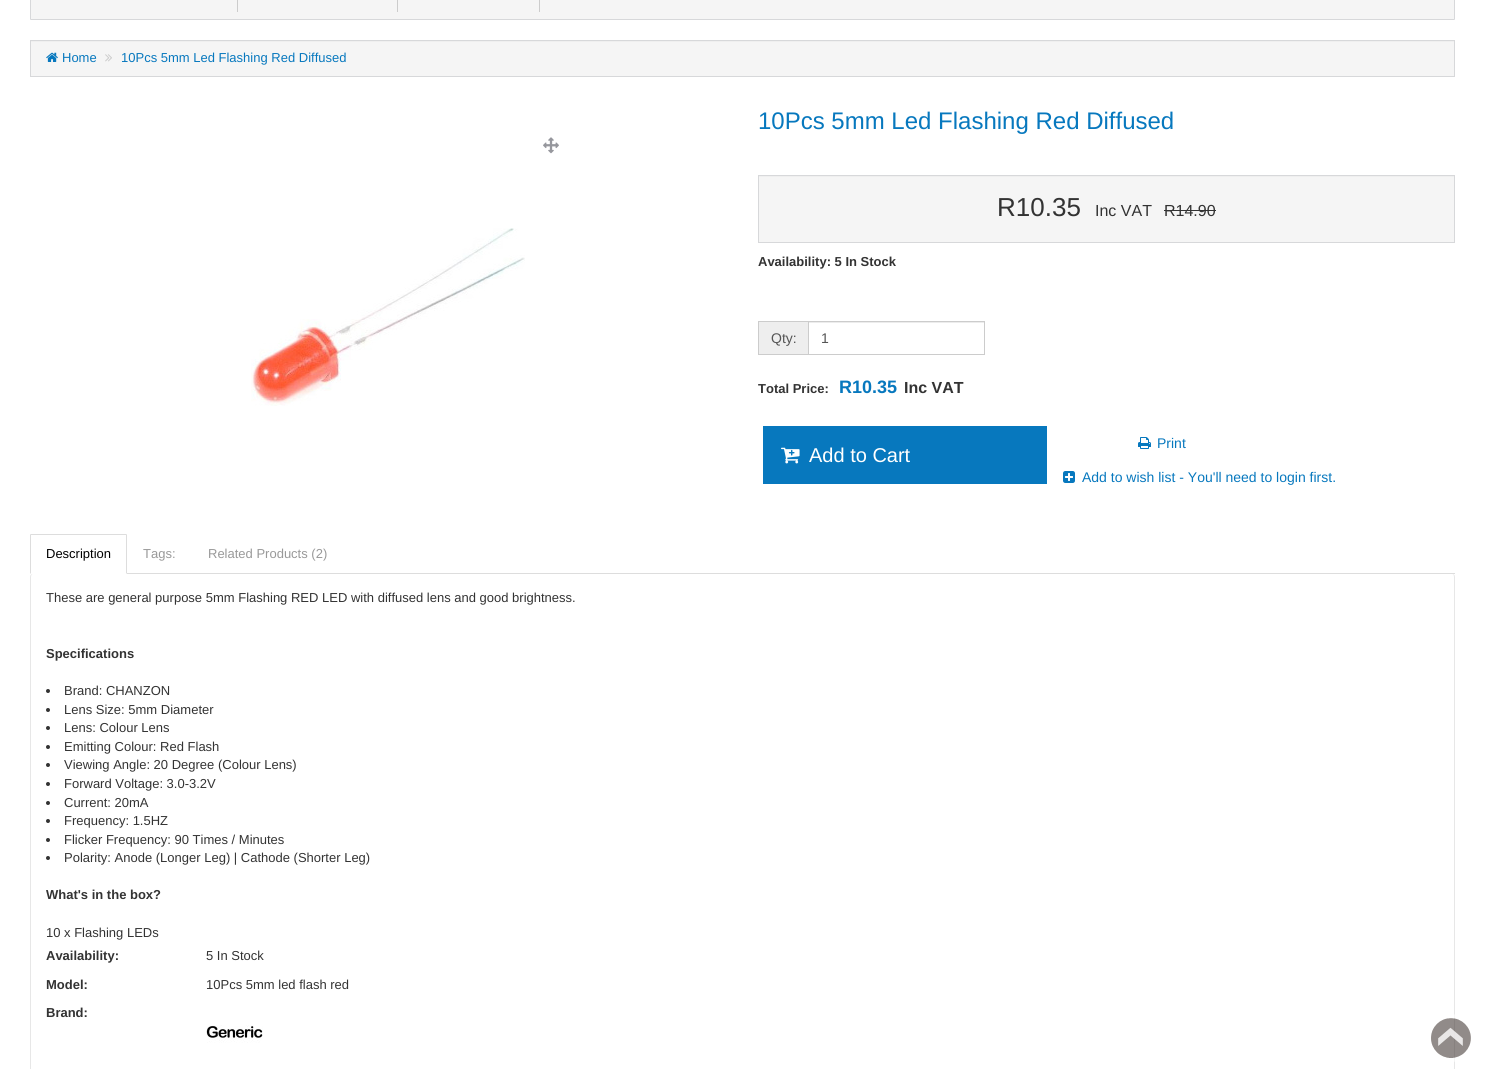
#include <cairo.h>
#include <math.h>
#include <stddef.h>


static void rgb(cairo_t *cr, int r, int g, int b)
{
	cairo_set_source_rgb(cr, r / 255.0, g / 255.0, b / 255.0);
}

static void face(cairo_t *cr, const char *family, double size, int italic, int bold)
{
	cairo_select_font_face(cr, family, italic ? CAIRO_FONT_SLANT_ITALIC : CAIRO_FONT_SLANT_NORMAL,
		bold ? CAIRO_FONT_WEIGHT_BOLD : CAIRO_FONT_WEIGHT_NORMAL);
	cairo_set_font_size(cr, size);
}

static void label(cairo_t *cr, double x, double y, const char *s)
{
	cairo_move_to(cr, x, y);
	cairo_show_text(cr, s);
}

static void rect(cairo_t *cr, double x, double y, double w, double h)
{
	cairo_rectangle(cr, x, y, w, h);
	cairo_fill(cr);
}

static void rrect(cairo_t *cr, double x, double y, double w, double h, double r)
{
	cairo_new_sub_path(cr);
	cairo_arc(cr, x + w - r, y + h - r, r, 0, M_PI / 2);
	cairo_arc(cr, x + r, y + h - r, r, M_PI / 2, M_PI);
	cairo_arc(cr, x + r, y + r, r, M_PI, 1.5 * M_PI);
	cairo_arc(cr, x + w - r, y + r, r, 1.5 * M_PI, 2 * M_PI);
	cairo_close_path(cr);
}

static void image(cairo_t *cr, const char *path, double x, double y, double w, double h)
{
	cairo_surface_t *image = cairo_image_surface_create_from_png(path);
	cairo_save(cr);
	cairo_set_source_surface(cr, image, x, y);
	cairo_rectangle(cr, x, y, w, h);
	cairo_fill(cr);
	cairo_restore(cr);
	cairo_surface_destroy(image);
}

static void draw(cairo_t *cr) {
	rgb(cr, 255, 255, 255);
	cairo_paint(cr);
	rgb(cr, 245, 245, 245);
	rrect(cr, 30.5, -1.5, 1424, 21, 0.5);
	cairo_fill_preserve(cr);
	rgb(cr, 215, 216, 218);
	cairo_set_line_width(cr, 1);
	cairo_stroke(cr);
	rgb(cr, 204, 204, 204);
	rect(cr, 237, 0, 1, 12);
	rect(cr, 397, 0, 1, 12);
	rect(cr, 539, 0, 1, 12);
	rgb(cr, 245, 245, 245);
	rect(cr, 31, 42, 1423, 34);
	rgb(cr, 239, 239, 239);
	rect(cr, 31, 41, 1423, 1);
	cairo_rectangle(cr, 30.5, 40.5, 1424, 36);
	rgb(cr, 215, 216, 218);
	cairo_stroke(cr);
	image(cr, "image0.png", 46, 52, 12, 10);
	face(cr, "Liberation Sans", 13, 0, 0);
	rgb(cr, 7, 120, 190);
	label(cr, 62, 62, "Home");
	image(cr, "image1.png", 105, 54, 7, 8);
	label(cr, 121, 62, "10Pcs 5mm Led Flashing Red Diffused");
	image(cr, "image2.png", 543, 137, 16, 17);
	image(cr, "image3.png", 251, 228, 274, 178);
	face(cr, "Liberation Sans", 24, 0, 0);
	label(cr, 758, 129, "10Pcs 5mm Led Flashing Red Diffused");
	rgb(cr, 245, 245, 245);
	rect(cr, 759, 177, 695, 65);
	rgb(cr, 239, 239, 239);
	rect(cr, 759, 176, 695, 1);
	cairo_rectangle(cr, 758.5, 175.5, 696, 67);
	rgb(cr, 215, 216, 218);
	cairo_stroke(cr);
	face(cr, "Liberation Sans", 26, 0, 0);
	rgb(cr, 51, 51, 51);
	label(cr, 997, 216, "R10.35");
	face(cr, "Liberation Sans", 16, 0, 0);
	label(cr, 1095, 216, "Inc VAT");
	label(cr, 1164, 216, "R14.90");
	rect(cr, 1164, 210, 52, 1);
	face(cr, "Liberation Sans", 13, 0, 1);
	label(cr, 758, 266, "Availability: 5 In Stock");
	rgb(cr, 238, 238, 238);
	rect(cr, 759, 322, 49, 32);
	rgb(cr, 204, 204, 204);
	rect(cr, 758, 321, 50, 1);
	rect(cr, 758, 354, 50, 1);
	rect(cr, 758, 321, 1, 34);
	face(cr, "Liberation Sans", 14, 0, 0);
	rgb(cr, 85, 85, 85);
	label(cr, 771, 343, "Qty:");
	rgb(cr, 236, 236, 236);
	rect(cr, 809, 322, 175, 1);
	cairo_rectangle(cr, 808.5, 321.5, 176, 33);
	rgb(cr, 204, 204, 204);
	cairo_stroke(cr);
	rgb(cr, 85, 85, 85);
	label(cr, 821, 343, "1");
	face(cr, "Liberation Sans", 13, 0, 1);
	rgb(cr, 51, 51, 51);
	label(cr, 758, 393, "Total Price:");
	face(cr, "Liberation Sans", 18, 0, 1);
	rgb(cr, 7, 120, 190);
	label(cr, 839, 393, "R10.35");
	face(cr, "Liberation Sans", 16, 0, 1);
	rgb(cr, 51, 51, 51);
	label(cr, 904, 393, "Inc VAT");
	image(cr, "image4.png", 1138, 437, 13, 12);
	face(cr, "Liberation Sans", 14, 0, 0);
	rgb(cr, 7, 120, 190);
	label(cr, 1157, 448, "Print");
	rect(cr, 763, 426, 284, 58);
	image(cr, "image5.png", 781, 447, 19, 17);
	face(cr, "Liberation Sans", 20, 0, 0);
	rgb(cr, 255, 255, 255);
	label(cr, 809, 462, "Add to Cart");
	image(cr, "image6.png", 1063, 471, 12, 12);
	face(cr, "Liberation Sans", 14, 0, 0);
	rgb(cr, 7, 120, 190);
	label(cr, 1082, 482, "Add to wish list - You'll need to login first.");
	rgb(cr, 221, 221, 221);
	rect(cr, 127, 573, 1328, 1);
	cairo_new_path(cr);
	cairo_move_to(cr, 31, 535);
	cairo_line_to(cr, 126, 535);
	cairo_line_to(cr, 127, 534);
	cairo_line_to(cr, 30, 534);
	cairo_close_path(cr);
	cairo_fill(cr);
	cairo_new_path(cr);
	cairo_move_to(cr, 127, 574);
	cairo_line_to(cr, 127, 534);
	cairo_line_to(cr, 126, 535);
	cairo_line_to(cr, 126, 573);
	cairo_close_path(cr);
	cairo_fill(cr);
	cairo_new_path(cr);
	cairo_move_to(cr, 31, 535);
	cairo_line_to(cr, 30, 534);
	cairo_line_to(cr, 30, 574);
	cairo_line_to(cr, 31, 573);
	cairo_close_path(cr);
	cairo_fill(cr);
	face(cr, "Liberation Sans", 13, 0, 0);
	rgb(cr, 0, 0, 0);
	label(cr, 46, 558, "Description");
	rgb(cr, 153, 153, 153);
	label(cr, 143, 558, "Tags:");
	label(cr, 208, 558, "Related Products (2)");
	rgb(cr, 231, 231, 231);
	cairo_set_fill_rule(cr, CAIRO_FILL_RULE_EVEN_ODD);
	cairo_new_path(cr);
	cairo_move_to(cr, 33, 574);
	cairo_line_to(cr, 1452, 574);
	cairo_curve_to(cr, 1454, 574, 1455, 575, 1455, 577);
	cairo_line_to(cr, 1455, 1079);
	cairo_curve_to(cr, 1455, 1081, 1454, 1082, 1452, 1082);
	cairo_line_to(cr, 33, 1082);
	cairo_curve_to(cr, 31, 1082, 30, 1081, 30, 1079);
	cairo_line_to(cr, 30, 577);
	cairo_curve_to(cr, 30, 575, 31, 574, 33, 574);
	cairo_close_path(cr);
	cairo_move_to(cr, 33, 574);
	cairo_line_to(cr, 1452, 574);
	cairo_curve_to(cr, 1453, 574, 1454, 575, 1454, 577);
	cairo_line_to(cr, 1454, 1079);
	cairo_curve_to(cr, 1454, 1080, 1453, 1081, 1452, 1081);
	cairo_line_to(cr, 33, 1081);
	cairo_curve_to(cr, 32, 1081, 31, 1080, 31, 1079);
	cairo_line_to(cr, 31, 577);
	cairo_curve_to(cr, 31, 575, 32, 574, 33, 574);
	cairo_close_path(cr);
	cairo_fill(cr);
	rgb(cr, 51, 51, 51);
	label(cr, 46, 602, "These are general purpose 5mm Flashing RED LED with diffused lens and good brightness.");
	face(cr, "Liberation Sans", 13, 0, 1);
	label(cr, 46, 658, "Specifications");
	cairo_new_path(cr);
	cairo_arc(cr, 48, 691, 2, 0, 2 * M_PI);
	cairo_fill(cr);
	face(cr, "Liberation Sans", 13, 0, 0);
	label(cr, 64, 695, "Brand: CHANZON");
	cairo_new_path(cr);
	cairo_arc(cr, 48, 710, 2, 0, 2 * M_PI);
	cairo_fill(cr);
	label(cr, 64, 714, "Lens Size: 5mm Diameter");
	cairo_new_path(cr);
	cairo_arc(cr, 48, 728, 2, 0, 2 * M_PI);
	cairo_fill(cr);
	label(cr, 64, 732, "Lens: Colour Lens");
	cairo_new_path(cr);
	cairo_arc(cr, 48, 747, 2, 0, 2 * M_PI);
	cairo_fill(cr);
	label(cr, 64, 751, "Emitting Colour: Red Flash");
	cairo_new_path(cr);
	cairo_arc(cr, 48, 765, 2, 0, 2 * M_PI);
	cairo_fill(cr);
	label(cr, 64, 769, "Viewing Angle: 20 Degree (Colour Lens)");
	cairo_new_path(cr);
	cairo_arc(cr, 48, 784, 2, 0, 2 * M_PI);
	cairo_fill(cr);
	label(cr, 64, 788, "Forward Voltage: 3.0-3.2V");
	cairo_new_path(cr);
	cairo_arc(cr, 48, 803, 2, 0, 2 * M_PI);
	cairo_fill(cr);
	label(cr, 64, 807, "Current: 20mA");
	cairo_new_path(cr);
	cairo_arc(cr, 48, 821, 2, 0, 2 * M_PI);
	cairo_fill(cr);
	label(cr, 64, 825, "Frequency: 1.5HZ");
	cairo_new_path(cr);
	cairo_arc(cr, 48, 840, 2, 0, 2 * M_PI);
	cairo_fill(cr);
	label(cr, 64, 844, "Flicker Frequency: 90 Times / Minutes");
	cairo_new_path(cr);
	cairo_arc(cr, 48, 858, 2, 0, 2 * M_PI);
	cairo_fill(cr);
	label(cr, 64, 862, "Polarity: Anode (Longer Leg) | Cathode (Shorter Leg)");
	face(cr, "Liberation Sans", 13, 0, 1);
	label(cr, 46, 899, "What's in the box?");
	face(cr, "Liberation Sans", 13, 0, 0);
	label(cr, 46, 937, "10 x Flashing LEDs");
	face(cr, "Liberation Sans", 13, 0, 1);
	label(cr, 46, 960, "Availability:");
	face(cr, "Liberation Sans", 13, 0, 0);
	label(cr, 206, 960, "5 In Stock");
	face(cr, "Liberation Sans", 13, 0, 1);
	label(cr, 46, 989, "Model:");
	face(cr, "Liberation Sans", 13, 0, 0);
	label(cr, 206, 989, "10Pcs 5mm led flash red");
	face(cr, "Liberation Sans", 13, 0, 1);
	label(cr, 46, 1017, "Brand:");
	image(cr, "image7.png", 206, 1025, 57, 18);
	image(cr, "image8.png", 1431, 1014, 40, 48);
}

int main(void) {
	cairo_surface_t *surface = cairo_image_surface_create(CAIRO_FORMAT_RGB24, 1485, 1069);
	cairo_t *cr = cairo_create(surface);
	cairo_font_options_t *options = cairo_font_options_create();
	cairo_font_options_set_hint_metrics(options, CAIRO_HINT_METRICS_OFF);
	cairo_font_options_set_hint_style(options, CAIRO_HINT_STYLE_NONE);
	cairo_set_font_options(cr, options);
	cairo_set_miter_limit(cr, 4);
	draw(cr);
	cairo_surface_write_to_png(surface, "render.png");
	cairo_font_options_destroy(options);
	cairo_destroy(cr);
	cairo_surface_destroy(surface);
	return 0;
}
